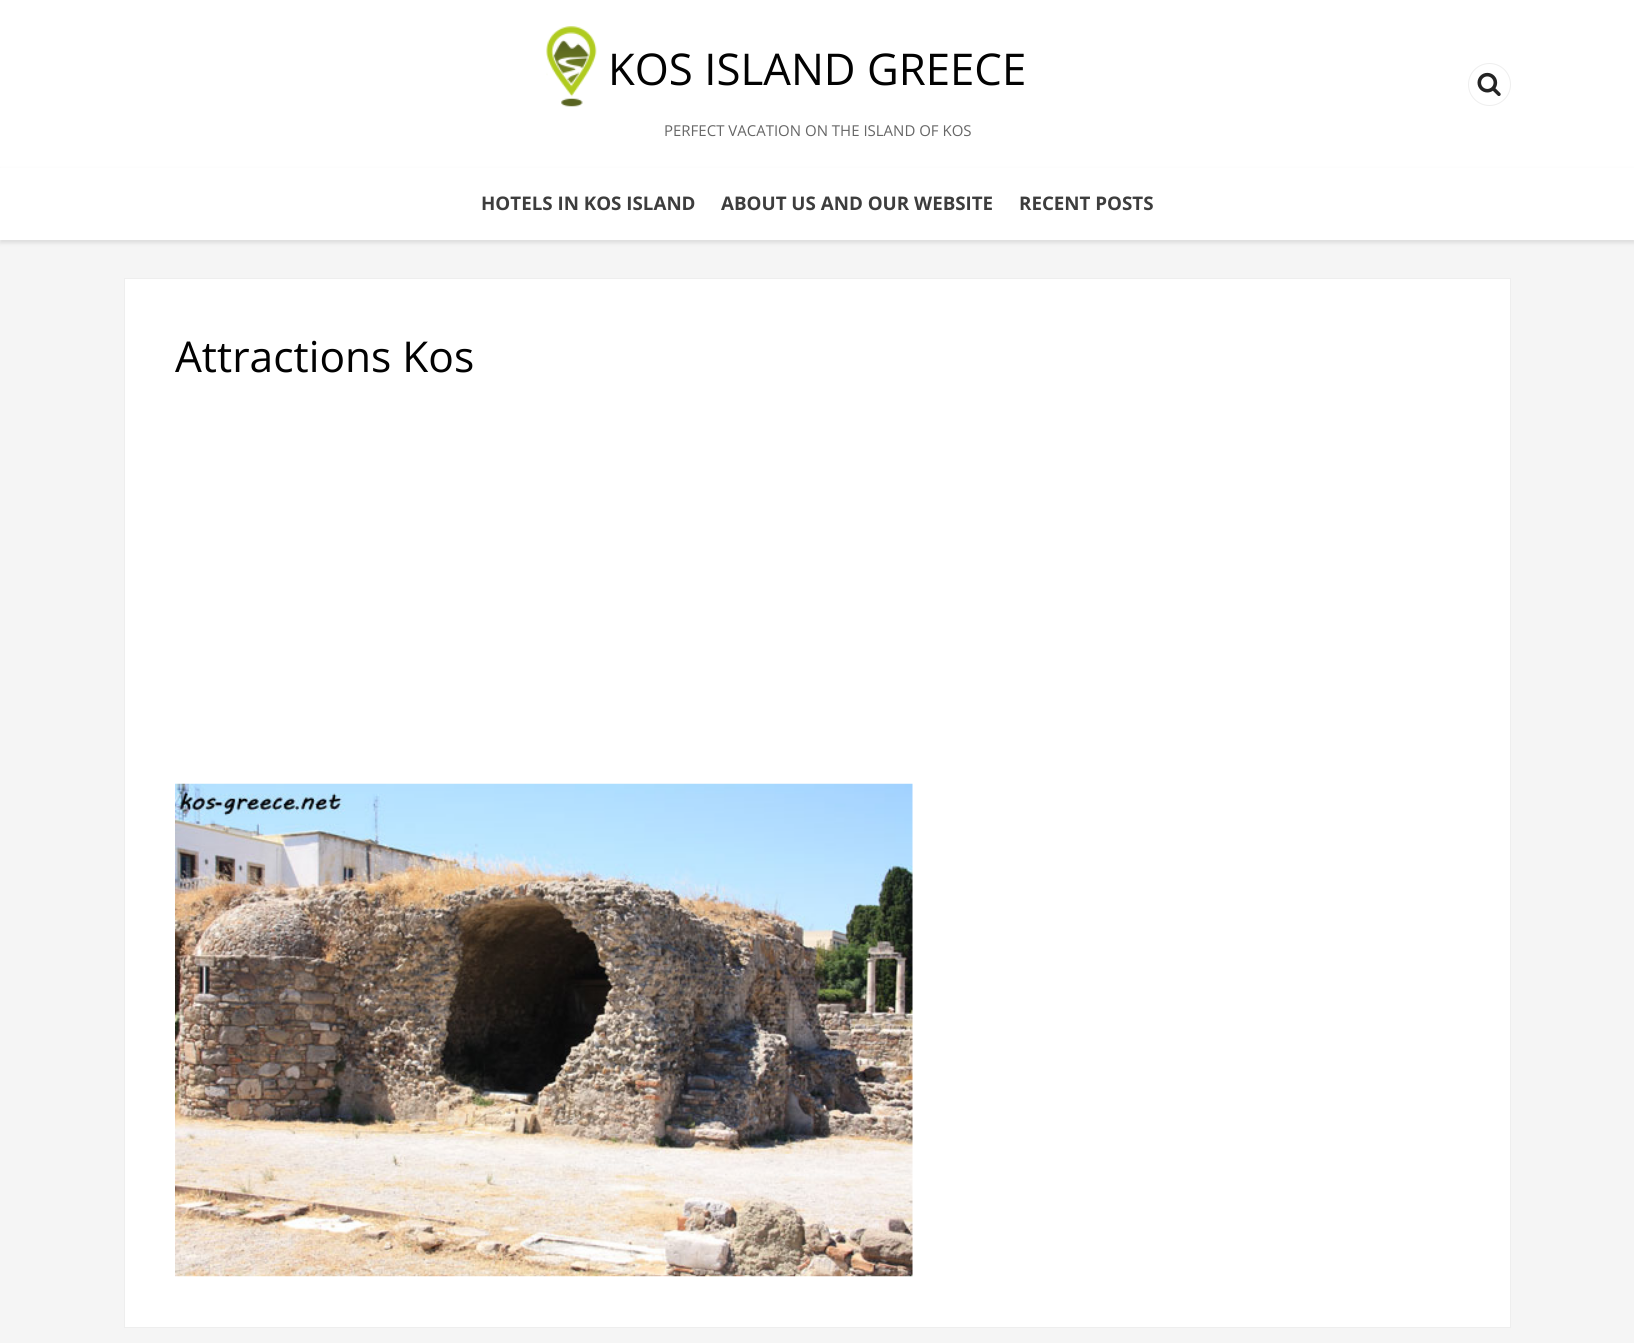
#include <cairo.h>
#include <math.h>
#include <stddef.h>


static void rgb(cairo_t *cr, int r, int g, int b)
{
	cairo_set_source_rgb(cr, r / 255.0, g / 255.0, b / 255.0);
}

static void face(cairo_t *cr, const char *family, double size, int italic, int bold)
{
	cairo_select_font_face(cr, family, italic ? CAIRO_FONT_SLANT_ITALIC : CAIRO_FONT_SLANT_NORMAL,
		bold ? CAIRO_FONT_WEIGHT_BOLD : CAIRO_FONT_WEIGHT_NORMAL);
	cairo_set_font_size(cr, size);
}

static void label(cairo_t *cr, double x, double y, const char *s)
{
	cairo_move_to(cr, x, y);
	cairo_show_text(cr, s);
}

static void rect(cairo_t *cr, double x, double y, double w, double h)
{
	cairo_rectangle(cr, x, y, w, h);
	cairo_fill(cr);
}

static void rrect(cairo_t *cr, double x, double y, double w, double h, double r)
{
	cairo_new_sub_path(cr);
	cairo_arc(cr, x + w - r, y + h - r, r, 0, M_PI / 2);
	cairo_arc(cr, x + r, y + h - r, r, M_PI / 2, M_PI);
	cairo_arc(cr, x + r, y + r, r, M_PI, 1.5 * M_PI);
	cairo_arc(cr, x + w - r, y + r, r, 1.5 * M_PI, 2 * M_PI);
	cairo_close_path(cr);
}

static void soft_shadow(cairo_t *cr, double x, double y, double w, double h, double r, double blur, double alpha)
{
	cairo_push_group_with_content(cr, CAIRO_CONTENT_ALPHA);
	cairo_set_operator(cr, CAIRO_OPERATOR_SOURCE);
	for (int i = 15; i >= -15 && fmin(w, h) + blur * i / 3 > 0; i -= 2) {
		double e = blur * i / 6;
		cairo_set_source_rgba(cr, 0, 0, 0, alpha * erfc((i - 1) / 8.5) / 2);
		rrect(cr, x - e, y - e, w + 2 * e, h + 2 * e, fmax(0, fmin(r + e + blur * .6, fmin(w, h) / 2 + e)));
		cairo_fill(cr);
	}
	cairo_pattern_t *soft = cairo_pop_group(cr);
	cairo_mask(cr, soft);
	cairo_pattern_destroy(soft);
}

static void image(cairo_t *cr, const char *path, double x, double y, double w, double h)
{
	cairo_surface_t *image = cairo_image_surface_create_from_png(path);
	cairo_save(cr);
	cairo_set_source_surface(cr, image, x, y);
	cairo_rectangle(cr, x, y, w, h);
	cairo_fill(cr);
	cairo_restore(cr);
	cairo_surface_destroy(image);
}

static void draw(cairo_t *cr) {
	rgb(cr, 245, 245, 245);
	cairo_paint(cr);
	rgb(cr, 255, 255, 255);
	rect(cr, 0, 0, 1634, 168);
	image(cr, "image0.png", 546, 26, 51, 81);
	face(cr, "Open Sans", 43.75, 0, 0);
	rgb(cr, 2, 2, 2);
	label(cr, 608, 85, "KOS ISLAND GREECE");
	face(cr, "Open Sans", 15, 0, 0);
	rgb(cr, 102, 102, 102);
	label(cr, 664, 136, "PERFECT VACATION ON THE ISLAND OF KOS");
	cairo_new_path(cr);
	cairo_arc(cr, 1489.5, 84.5, 21, 0, 2 * M_PI);
	rgb(cr, 238, 238, 238);
	cairo_set_line_width(cr, 1);
	cairo_stroke(cr);
	image(cr, "image1.png", 1477, 72, 24, 24);
	rgb(cr, 0, 0, 0);
	soft_shadow(cr, 0, 170, 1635, 73, 0, 2, 0.1);
	rgb(cr, 255, 255, 255);
	rect(cr, 0, 168, 1634, 72);
	face(cr, "Open Sans", 18.75, 0, 1);
	rgb(cr, 61, 61, 61);
	label(cr, 481, 210, "HOTELS IN KOS ISLAND");
	label(cr, 721, 210, "ABOUT US AND OUR WEBSITE");
	label(cr, 1019, 210, "RECENT POSTS");
	rgb(cr, 255, 255, 255);
	cairo_rectangle(cr, 124.5, 278.5, 1386, 1049);
	cairo_fill_preserve(cr);
	rgb(cr, 238, 238, 238);
	cairo_stroke(cr);
	face(cr, "Open Sans", 42.5, 0, 0);
	rgb(cr, 2, 2, 2);
	label(cr, 175, 372, "Attractions Kos");
	image(cr, "image2.png", 175, 783, 738, 494);
}

int main(void) {
	cairo_surface_t *surface = cairo_image_surface_create(CAIRO_FORMAT_RGB24, 1634, 1343);
	cairo_t *cr = cairo_create(surface);
	cairo_font_options_t *options = cairo_font_options_create();
	cairo_font_options_set_hint_metrics(options, CAIRO_HINT_METRICS_OFF);
	cairo_font_options_set_hint_style(options, CAIRO_HINT_STYLE_NONE);
	cairo_set_font_options(cr, options);
	cairo_set_miter_limit(cr, 4);
	draw(cr);
	cairo_surface_write_to_png(surface, "render.png");
	cairo_font_options_destroy(options);
	cairo_destroy(cr);
	cairo_surface_destroy(surface);
	return 0;
}
